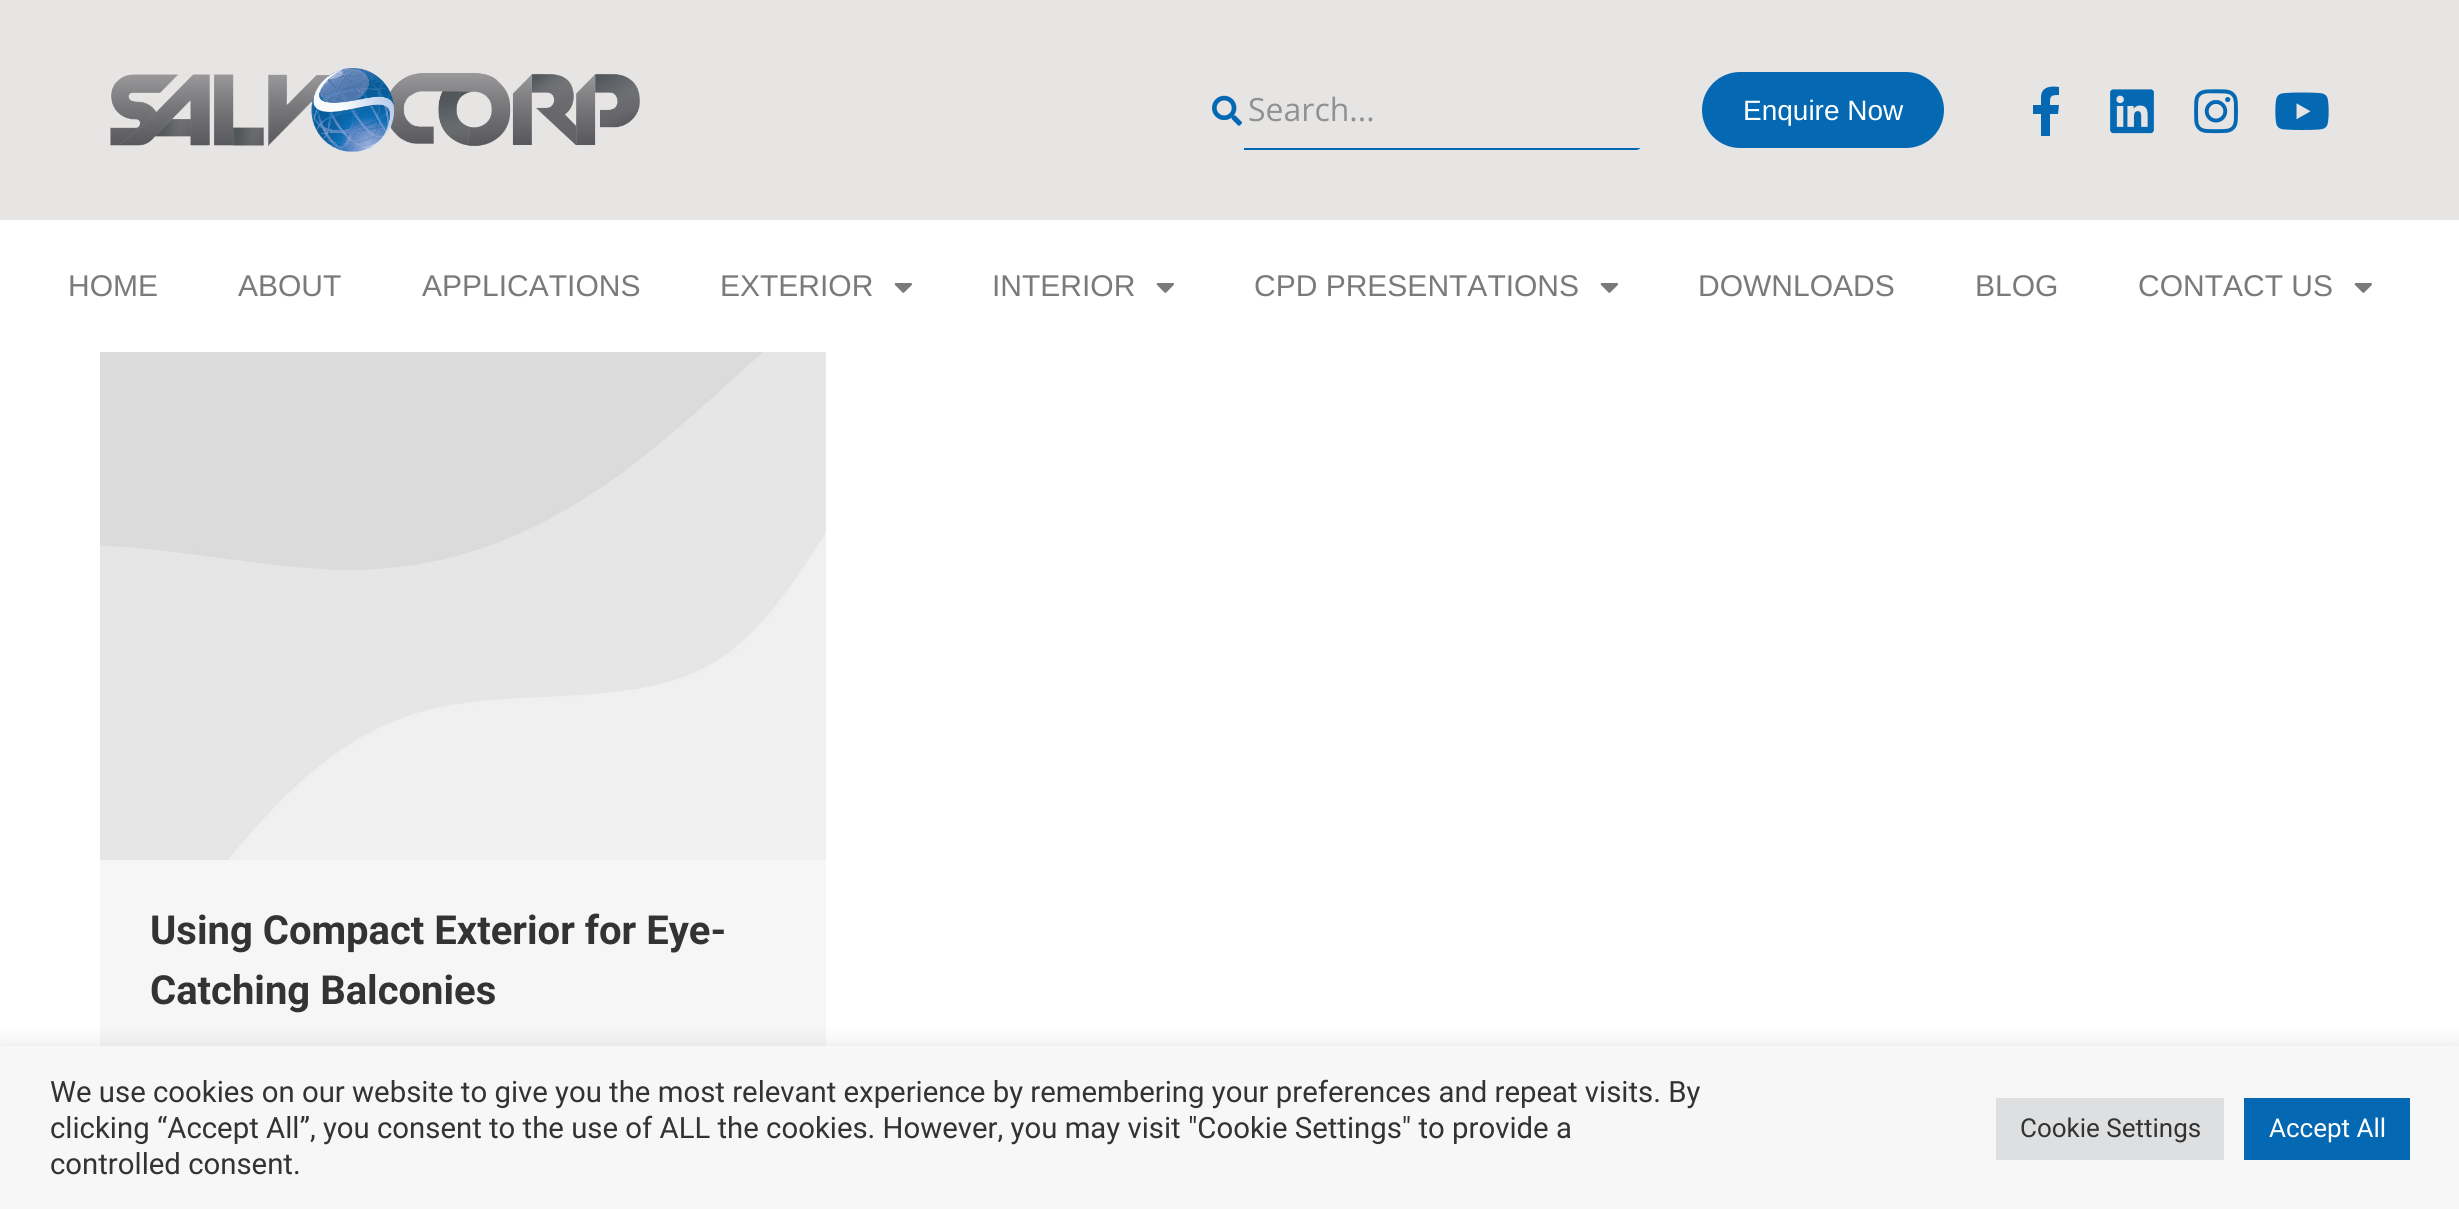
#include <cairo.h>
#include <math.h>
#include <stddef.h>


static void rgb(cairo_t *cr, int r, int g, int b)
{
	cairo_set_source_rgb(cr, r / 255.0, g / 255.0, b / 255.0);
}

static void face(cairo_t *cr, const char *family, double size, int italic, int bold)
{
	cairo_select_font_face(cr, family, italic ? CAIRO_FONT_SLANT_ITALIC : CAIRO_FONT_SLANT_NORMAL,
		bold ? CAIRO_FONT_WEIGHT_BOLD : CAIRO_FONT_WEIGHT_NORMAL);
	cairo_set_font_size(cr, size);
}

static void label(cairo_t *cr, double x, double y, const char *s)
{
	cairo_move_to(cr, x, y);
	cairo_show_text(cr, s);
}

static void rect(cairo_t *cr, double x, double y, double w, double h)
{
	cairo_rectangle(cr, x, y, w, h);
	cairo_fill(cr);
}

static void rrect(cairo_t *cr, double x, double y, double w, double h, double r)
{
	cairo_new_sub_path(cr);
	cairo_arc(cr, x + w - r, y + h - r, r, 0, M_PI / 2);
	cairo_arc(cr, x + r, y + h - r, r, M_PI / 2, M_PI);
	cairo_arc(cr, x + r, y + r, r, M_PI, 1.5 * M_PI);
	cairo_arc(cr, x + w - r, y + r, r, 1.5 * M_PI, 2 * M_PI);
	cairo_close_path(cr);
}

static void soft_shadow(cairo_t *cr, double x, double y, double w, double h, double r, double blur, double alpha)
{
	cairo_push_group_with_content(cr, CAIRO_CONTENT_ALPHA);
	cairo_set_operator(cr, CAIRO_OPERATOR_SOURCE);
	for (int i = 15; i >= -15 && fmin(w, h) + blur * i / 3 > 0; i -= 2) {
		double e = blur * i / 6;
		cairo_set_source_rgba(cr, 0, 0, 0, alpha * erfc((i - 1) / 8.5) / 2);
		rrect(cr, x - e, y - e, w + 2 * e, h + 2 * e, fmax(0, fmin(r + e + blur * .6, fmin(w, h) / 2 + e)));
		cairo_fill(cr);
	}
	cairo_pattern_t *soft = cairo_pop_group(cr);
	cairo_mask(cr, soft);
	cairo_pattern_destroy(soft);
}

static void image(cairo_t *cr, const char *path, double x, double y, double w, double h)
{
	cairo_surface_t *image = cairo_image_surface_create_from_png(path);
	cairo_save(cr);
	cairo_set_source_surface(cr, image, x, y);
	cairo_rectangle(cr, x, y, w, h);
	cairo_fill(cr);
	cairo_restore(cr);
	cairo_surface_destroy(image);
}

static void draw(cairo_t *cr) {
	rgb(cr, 255, 255, 255);
	cairo_paint(cr);
	rgb(cr, 231, 228, 228);
	rect(cr, 0, 0, 2459, 220);
	image(cr, "image0.png", 110, 68, 530, 84);
	image(cr, "image1.png", 1212, 95, 30, 31);
	cairo_save(cr);
	rrect(cr, 1204, 70, 438, 80, 6);
	cairo_clip(cr);
	rgb(cr, 4, 105, 178);
	rect(cr, 1244, 148, 396, 2);
	cairo_restore(cr);
	face(cr, "Open Sans", 32, 0, 0);
	rgb(cr, 143, 145, 146);
	label(cr, 1248, 121, "Search...");
	rgb(cr, 4, 105, 178);
	rrect(cr, 1702, 72, 242, 76, 38);
	cairo_fill(cr);
	face(cr, "Liberation Sans", 28, 0, 0);
	rgb(cr, 255, 255, 255);
	label(cr, 1743, 120, "Enquire Now");
	rgb(cr, 4, 105, 178);
	cairo_new_path(cr);
	cairo_move_to(cr, 2058, 114);
	cairo_line_to(cr, 2050, 114);
	cairo_line_to(cr, 2050, 136);
	cairo_line_to(cr, 2041, 136);
	cairo_line_to(cr, 2041, 114);
	cairo_line_to(cr, 2033, 114);
	cairo_line_to(cr, 2033, 105);
	cairo_line_to(cr, 2041, 105);
	cairo_line_to(cr, 2041, 96);
	cairo_curve_to(cr, 2042, 86, 2052, 86, 2059, 87);
	cairo_line_to(cr, 2059, 95);
	cairo_curve_to(cr, 2050, 95, 2050, 96, 2050, 105);
	cairo_line_to(cr, 2059, 105);
	cairo_close_path(cr);
	cairo_fill(cr);
	image(cr, "image2.png", 2110, 89, 44, 45);
	image(cr, "image3.png", 2194, 89, 44, 45);
	image(cr, "image4.png", 2275, 92, 54, 38);
	face(cr, "Liberation Sans", 30, 0, 0);
	rgb(cr, 122, 122, 122);
	label(cr, 68, 296, "HOME");
	label(cr, 238, 296, "ABOUT");
	label(cr, 422, 296, "APPLICATIONS");
	label(cr, 720, 296, "EXTERIOR");
	image(cr, "image5.png", 894, 283, 18, 10);
	label(cr, 992, 296, "INTERIOR");
	image(cr, "image5.png", 1156, 283, 18, 10);
	label(cr, 1254, 296, "CPD PRESENTATIONS");
	image(cr, "image5.png", 1600, 283, 18, 10);
	label(cr, 1698, 296, "DOWNLOADS");
	label(cr, 1975, 296, "BLOG");
	label(cr, 2138, 296, "CONTACT US");
	image(cr, "image5.png", 2354, 283, 18, 10);
	rgb(cr, 246, 246, 246);
	rect(cr, 100, 352, 726, 694);
	image(cr, "image6.png", 100, 352, 726, 508);
	face(cr, "Roboto", 40, 0, 1);
	rgb(cr, 51, 51, 51);
	label(cr, 150, 944, "Using Compact Exterior for Eye-");
	label(cr, 150, 1004, "Catching Balconies");
	rgb(cr, 172, 171, 171);
	soft_shadow(cr, 0, 1044, 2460, 164, 0, 10, 0.3);
	rgb(cr, 247, 247, 247);
	rect(cr, 0, 1046, 2459, 163);
	face(cr, "Roboto", 29.33, 0, 0);
	rgb(cr, 51, 51, 51);
	label(cr, 50, 1102, "We use cookies on our website to give you the most relevant experience by remembering your preferences and repeat visits. By");
	label(cr, 50, 1138, "clicking “Accept All”, you consent to the use of ALL the cookies. However, you may visit \"Cookie Settings\" to provide a");
	label(cr, 50, 1174, "controlled consent.");
	rgb(cr, 222, 223, 224);
	rect(cr, 1996, 1098, 228, 62);
	face(cr, "Roboto", 26, 0, 0);
	rgb(cr, 51, 51, 51);
	label(cr, 2020, 1137, "Cookie Settings");
	rgb(cr, 4, 105, 178);
	rect(cr, 2244, 1098, 166, 62);
	rgb(cr, 255, 255, 255);
	label(cr, 2269, 1137, "Accept All");
}

int main(void) {
	cairo_surface_t *surface = cairo_image_surface_create(CAIRO_FORMAT_RGB24, 2459, 1209);
	cairo_t *cr = cairo_create(surface);
	cairo_font_options_t *options = cairo_font_options_create();
	cairo_font_options_set_hint_metrics(options, CAIRO_HINT_METRICS_OFF);
	cairo_font_options_set_hint_style(options, CAIRO_HINT_STYLE_NONE);
	cairo_set_font_options(cr, options);
	cairo_set_miter_limit(cr, 4);
	draw(cr);
	cairo_surface_write_to_png(surface, "render.png");
	cairo_font_options_destroy(options);
	cairo_destroy(cr);
	cairo_surface_destroy(surface);
	return 0;
}
